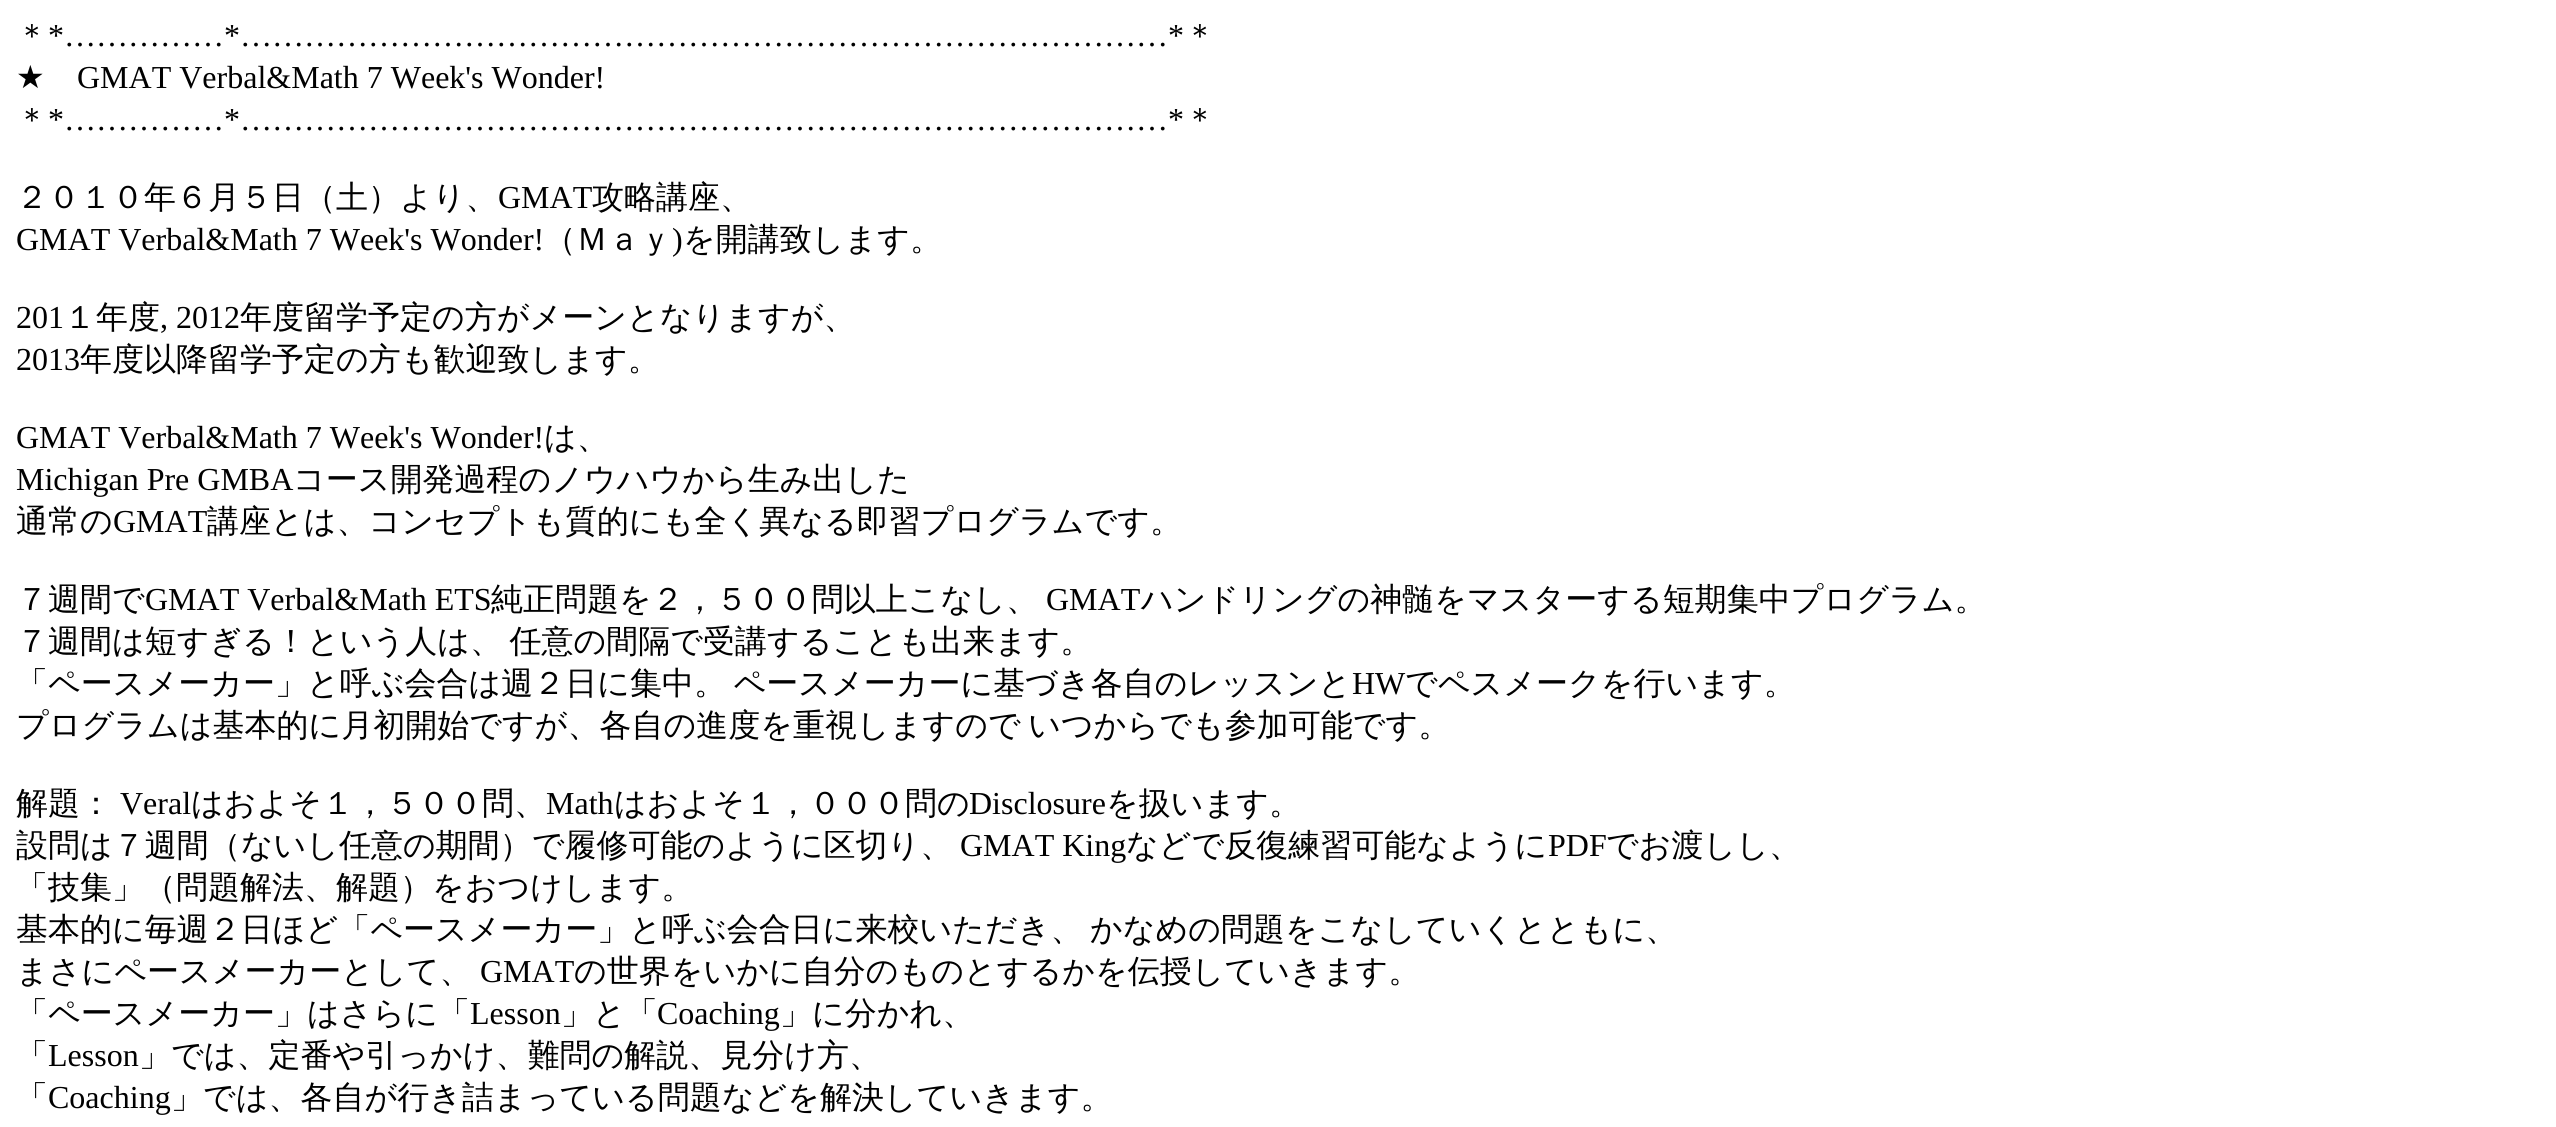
#include <cairo.h>
#include <math.h>
#include <stddef.h>


static void rgb(cairo_t *cr, int r, int g, int b)
{
	cairo_set_source_rgb(cr, r / 255.0, g / 255.0, b / 255.0);
}

static void face(cairo_t *cr, const char *family, double size, int italic, int bold)
{
	cairo_select_font_face(cr, family, italic ? CAIRO_FONT_SLANT_ITALIC : CAIRO_FONT_SLANT_NORMAL,
		bold ? CAIRO_FONT_WEIGHT_BOLD : CAIRO_FONT_WEIGHT_NORMAL);
	cairo_set_font_size(cr, size);
}

static void label(cairo_t *cr, double x, double y, const char *s)
{
	cairo_move_to(cr, x, y);
	cairo_show_text(cr, s);
}

static void tracked(cairo_t *cr, double x, double y, const char *s, double letter, double word)
{
	cairo_move_to(cr, x, y);
	while (*s) {
		char ch[5] = {0};
		int n = 0;
		do ch[n++] = *s++; while ((*s & 0xC0) == 0x80);
		cairo_show_text(cr, ch);
		cairo_rel_move_to(cr, letter + word * (*ch == ' '), 0);
	}
}

static void draw(cairo_t *cr) {
	rgb(cr, 255, 255, 255);
	cairo_paint(cr);
	face(cr, "WenQuanYi Zen Hei Medium", 32, 0, 0);
	rgb(cr, 0, 0, 0);
	label(cr, 16, 46, "＊");
	face(cr, "Liberation Serif", 32, 0, 0);
	label(cr, 48, 46, "*……………*……………………………………………………………………………*");
	face(cr, "WenQuanYi Zen Hei Medium", 32, 0, 0);
	label(cr, 1184, 46, "＊");
	face(cr, "DejaVu Sans", 32, 0, 0);
	label(cr, 16, 88, "★");
	face(cr, "Liberation Serif", 32, 0, 0);
	label(cr, 77, 88, "GMAT Verbal&Math 7 Week's Wonder!");
	face(cr, "WenQuanYi Zen Hei Medium", 32, 0, 0);
	label(cr, 16, 130, "＊");
	face(cr, "Liberation Serif", 32, 0, 0);
	label(cr, 48, 130, "*……………*……………………………………………………………………………*");
	face(cr, "WenQuanYi Zen Hei Medium", 32, 0, 0);
	label(cr, 1184, 130, "＊");
	label(cr, 16, 208, "２０１０年６月５日（土）より、");
	face(cr, "Liberation Serif", 32, 0, 0);
	label(cr, 498, 208, "GMAT");
	face(cr, "WenQuanYi Zen Hei Medium", 32, 0, 0);
	label(cr, 592, 208, "攻略講座、");
	face(cr, "Liberation Serif", 32, 0, 0);
	label(cr, 16, 250, "GMAT Verbal&Math 7 Week's Wonder!");
	face(cr, "WenQuanYi Zen Hei Medium", 32, 0, 0);
	label(cr, 544, 250, "（Ｍａｙ");
	face(cr, "Liberation Serif", 32, 0, 0);
	label(cr, 672, 250, ")");
	face(cr, "WenQuanYi Zen Hei Medium", 32, 0, 0);
	label(cr, 683, 250, "を開講致します。");
	face(cr, "Liberation Serif", 32, 0, 0);
	label(cr, 16, 328, "201");
	face(cr, "WenQuanYi Zen Hei Medium", 32, 0, 0);
	label(cr, 64, 328, "１年度");
	face(cr, "Liberation Serif", 32, 0, 0);
	label(cr, 160, 328, ", 2012");
	face(cr, "WenQuanYi Zen Hei Medium", 32, 0, 0);
	label(cr, 240, 328, "年度留学予定の方がメーンとなりますが、");
	face(cr, "Liberation Serif", 32, 0, 0);
	label(cr, 16, 370, "2013");
	face(cr, "WenQuanYi Zen Hei Medium", 32, 0, 0);
	label(cr, 80, 370, "年度以降留学予定の方も歓迎致します。");
	face(cr, "Liberation Serif", 32, 0, 0);
	label(cr, 16, 448, "GMAT Verbal&Math 7 Week's Wonder!");
	face(cr, "WenQuanYi Zen Hei Medium", 32, 0, 0);
	label(cr, 544, 448, "は、");
	face(cr, "Liberation Serif", 32, 0, 0);
	label(cr, 16, 490, "Michigan Pre GMBA");
	face(cr, "WenQuanYi Zen Hei Medium", 32, 0, 0);
	label(cr, 293, 490, "コース開発過程のノウハウから生み出した");
	label(cr, 16, 532, "通常の");
	face(cr, "Liberation Serif", 32, 0, 0);
	label(cr, 113, 532, "GMAT");
	face(cr, "WenQuanYi Zen Hei Medium", 32, 0, 0);
	label(cr, 207, 532, "講座とは、コンセプトも質的にも全く異なる即習プログラムです。");
	label(cr, 16, 610, "７週間で");
	face(cr, "Liberation Serif", 32, 0, 0);
	label(cr, 145, 610, "GMAT Verbal&Math ETS");
	face(cr, "WenQuanYi Zen Hei Medium", 32, 0, 0);
	label(cr, 491, 610, "純正問題を２，５００問以上こなし、");
	face(cr, "Liberation Serif", 32, 0, 0);
	label(cr, 1046, 610, "GMAT");
	face(cr, "WenQuanYi Zen Hei Medium", 32, 0, 0);
	label(cr, 1141, 610, "ハンドリングの神髄をマスターする短期集中プログラム。");
	tracked(cr, 16, 652, "７週間は短すぎる！という人は、 任意の間隔で受講することも出来ます。", 0, -2);
	tracked(cr, 16, 694, "「ペースメーカー」と呼ぶ会合は週２日に集中。 ペースメーカーに基づき各自のレッスンと", 0, -2);
	face(cr, "Liberation Serif", 32, 0, 0);
	label(cr, 1352, 694, "HW");
	face(cr, "WenQuanYi Zen Hei Medium", 32, 0, 0);
	label(cr, 1405, 694, "でペスメークを行います。");
	tracked(cr, 16, 736, "プログラムは基本的に月初開始ですが、各自の進度を重視しますので いつからでも参加可能です。", 0, -2);
	label(cr, 16, 814, "解題：");
	face(cr, "Liberation Serif", 32, 0, 0);
	label(cr, 120, 814, "Veral");
	face(cr, "WenQuanYi Zen Hei Medium", 32, 0, 0);
	label(cr, 191, 814, "はおよそ１，５００問、");
	face(cr, "Liberation Serif", 32, 0, 0);
	label(cr, 546, 814, "Math");
	face(cr, "WenQuanYi Zen Hei Medium", 32, 0, 0);
	label(cr, 614, 814, "はおよそ１，０００問の");
	face(cr, "Liberation Serif", 32, 0, 0);
	label(cr, 969, 814, "Disclosure");
	face(cr, "WenQuanYi Zen Hei Medium", 32, 0, 0);
	label(cr, 1106, 814, "を扱います。");
	label(cr, 16, 856, "設問は７週間（ないし任意の期間）で履修可能のように区切り、");
	face(cr, "Liberation Serif", 32, 0, 0);
	label(cr, 960, 856, "GMAT King");
	face(cr, "WenQuanYi Zen Hei Medium", 32, 0, 0);
	label(cr, 1126, 856, "などで反復練習可能なように");
	face(cr, "Liberation Serif", 32, 0, 0);
	label(cr, 1548, 856, "PDF");
	face(cr, "WenQuanYi Zen Hei Medium", 32, 0, 0);
	label(cr, 1606, 856, "でお渡しし、");
	label(cr, 16, 898, "「技集」（問題解法、解題）をおつけします。");
	tracked(cr, 16, 940, "基本的に毎週２日ほど「ペースメーカー」と呼ぶ会合日に来校いただき、 かなめの問題をこなしていくとともに、", 0, -2);
	label(cr, 16, 982, "まさにペースメーカーとして、");
	face(cr, "Liberation Serif", 32, 0, 0);
	label(cr, 480, 982, "GMAT");
	face(cr, "WenQuanYi Zen Hei Medium", 32, 0, 0);
	label(cr, 574, 982, "の世界をいかに自分のものとするかを伝授していきます。");
	label(cr, 16, 1024, "「ペースメーカー」はさらに「");
	face(cr, "Liberation Serif", 32, 0, 0);
	label(cr, 470, 1024, "Lesson");
	face(cr, "WenQuanYi Zen Hei Medium", 32, 0, 0);
	label(cr, 561, 1024, "」と「");
	face(cr, "Liberation Serif", 32, 0, 0);
	label(cr, 657, 1024, "Coaching");
	face(cr, "WenQuanYi Zen Hei Medium", 32, 0, 0);
	label(cr, 780, 1024, "」に分かれ、");
	label(cr, 16, 1066, "「");
	face(cr, "Liberation Serif", 32, 0, 0);
	label(cr, 48, 1066, "Lesson");
	face(cr, "WenQuanYi Zen Hei Medium", 32, 0, 0);
	label(cr, 139, 1066, "」では、定番や引っかけ、難問の解説、見分け方、");
	label(cr, 16, 1108, "「");
	face(cr, "Liberation Serif", 32, 0, 0);
	label(cr, 48, 1108, "Coaching");
	face(cr, "WenQuanYi Zen Hei Medium", 32, 0, 0);
	label(cr, 171, 1108, "」では、各自が行き詰まっている問題などを解決していきます。");
}

int main(void) {
	cairo_surface_t *surface = cairo_image_surface_create(CAIRO_FORMAT_RGB24, 2556, 1127);
	cairo_t *cr = cairo_create(surface);
	cairo_font_options_t *options = cairo_font_options_create();
	cairo_font_options_set_hint_metrics(options, CAIRO_HINT_METRICS_OFF);
	cairo_font_options_set_hint_style(options, CAIRO_HINT_STYLE_NONE);
	cairo_set_font_options(cr, options);
	cairo_set_miter_limit(cr, 4);
	draw(cr);
	cairo_surface_write_to_png(surface, "render.png");
	cairo_font_options_destroy(options);
	cairo_destroy(cr);
	cairo_surface_destroy(surface);
	return 0;
}
